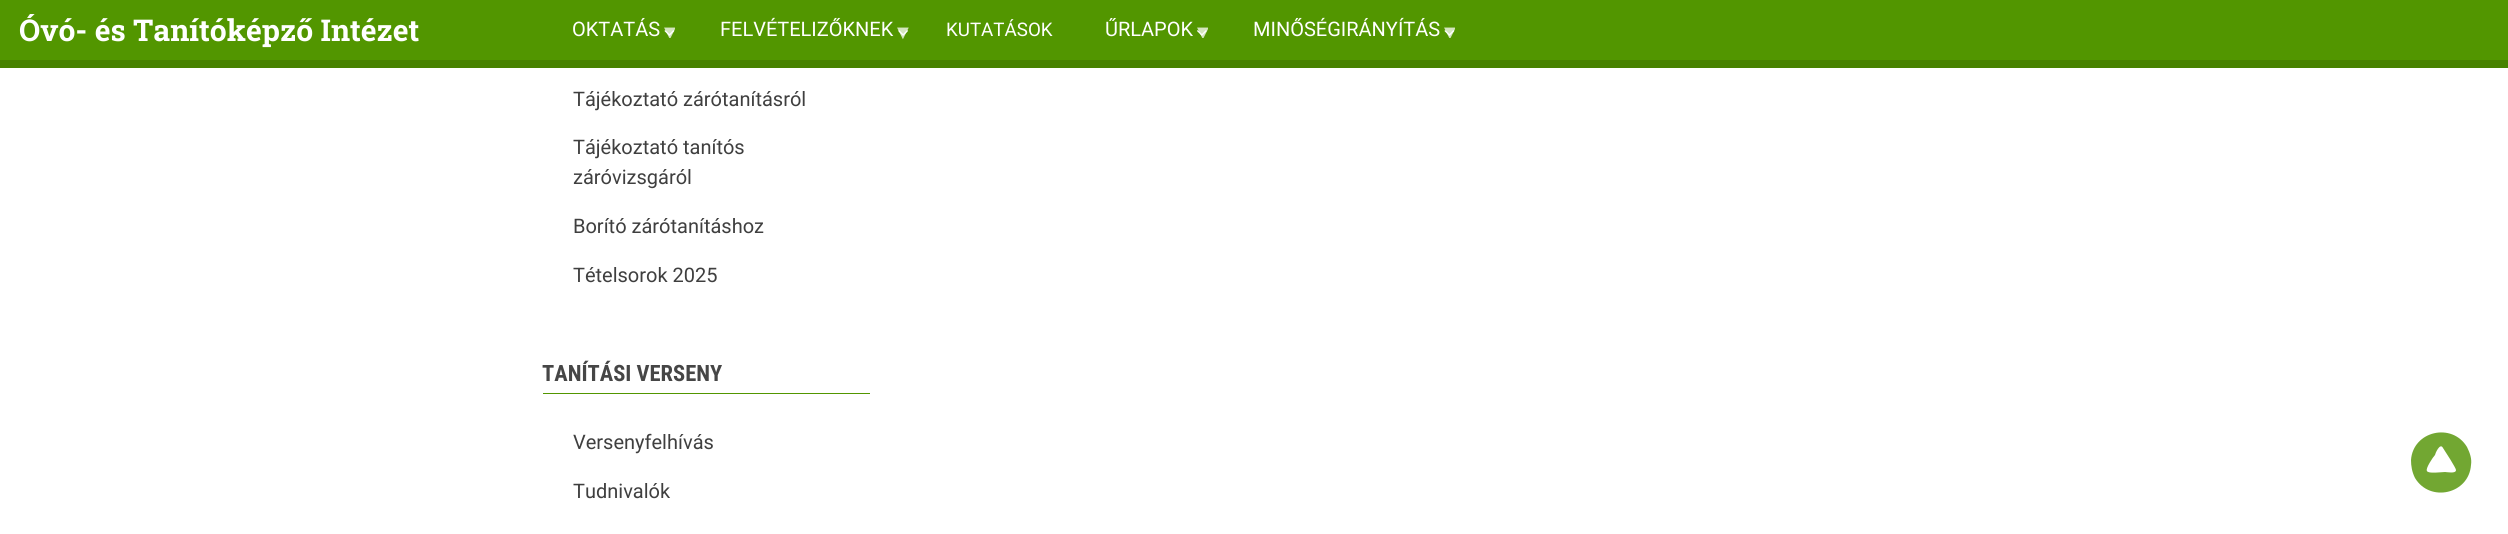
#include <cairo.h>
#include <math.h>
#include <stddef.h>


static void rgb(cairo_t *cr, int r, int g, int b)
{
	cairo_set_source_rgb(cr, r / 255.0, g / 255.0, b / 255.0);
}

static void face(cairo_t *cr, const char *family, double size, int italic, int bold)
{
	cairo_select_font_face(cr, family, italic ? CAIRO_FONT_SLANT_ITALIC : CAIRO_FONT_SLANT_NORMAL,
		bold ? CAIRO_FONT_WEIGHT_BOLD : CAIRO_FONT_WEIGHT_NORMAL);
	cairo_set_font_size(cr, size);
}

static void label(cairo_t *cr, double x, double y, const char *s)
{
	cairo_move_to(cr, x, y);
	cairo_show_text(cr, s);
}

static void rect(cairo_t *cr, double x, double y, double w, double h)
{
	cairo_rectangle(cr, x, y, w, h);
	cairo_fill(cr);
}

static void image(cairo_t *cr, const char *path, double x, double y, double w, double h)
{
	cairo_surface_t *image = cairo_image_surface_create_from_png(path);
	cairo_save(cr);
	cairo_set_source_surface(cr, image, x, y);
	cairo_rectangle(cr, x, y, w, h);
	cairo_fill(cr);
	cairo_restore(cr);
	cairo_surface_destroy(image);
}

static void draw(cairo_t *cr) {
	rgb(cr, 255, 255, 255);
	cairo_paint(cr);
	rgb(cr, 82, 150, 0);
	rect(cr, 0, 0, 2508, 60);
	rgb(cr, 71, 130, 0);
	rect(cr, 0, 60, 2508, 8);
	face(cr, "Roboto Slab", 30, 0, 1);
	rgb(cr, 255, 255, 255);
	label(cr, 19, 41, "Óvó- és Tanítóképző Intézet");
	face(cr, "Roboto", 20, 0, 0);
	label(cr, 572, 36, "OKTATÁS");
	cairo_save(cr);
	cairo_rectangle(cr, 660, 23, 15, 15);
	cairo_clip(cr);
	face(cr, "Liberation Sans", 20, 0, 0);
	rgb(cr, 212, 229, 191);
	label(cr, 660, 39, "▼");
	cairo_restore(cr);
	image(cr, "image0.png", 664, 30, 11, 6);
	label(cr, 720, 36, "FELVÉTELIZŐKNEK");
	face(cr, "Liberation Sans", 20, 0, 0);
	rgb(cr, 212, 229, 191);
	label(cr, 893, 39, "▼");
	image(cr, "image1.png", 898, 30, 10, 6);
	face(cr, "Roboto", 18.75, 0, 0);
	rgb(cr, 255, 255, 255);
	label(cr, 946, 36, "KUTATÁSOK");
	face(cr, "Roboto", 20, 0, 0);
	label(cr, 1105, 36, "ŰRLAPOK");
	cairo_save(cr);
	cairo_rectangle(cr, 1193, 23, 15, 15);
	cairo_clip(cr);
	face(cr, "Liberation Sans", 20, 0, 0);
	rgb(cr, 212, 229, 191);
	label(cr, 1193, 39, "▼");
	cairo_restore(cr);
	image(cr, "image2.png", 1197, 30, 10, 6);
	label(cr, 1253, 36, "MINŐSÉGIRÁNYÍTÁS");
	cairo_save(cr);
	cairo_rectangle(cr, 1440, 23, 15, 15);
	cairo_clip(cr);
	face(cr, "Liberation Sans", 20, 0, 0);
	rgb(cr, 212, 229, 191);
	label(cr, 1440, 39, "▼");
	cairo_restore(cr);
	image(cr, "image3.png", 1444, 30, 11, 6);
	rgb(cr, 63, 63, 63);
	label(cr, 573, 106, "Tájékoztató zárótanításról");
	label(cr, 573, 154, "Tájékoztató tanítós");
	label(cr, 573, 184, "záróvizsgáról");
	label(cr, 573, 233, "Borító zárótanításhoz");
	label(cr, 573, 282, "Tételsorok 2025");
	rgb(cr, 82, 150, 0);
	rect(cr, 543, 393, 327, 1);
	face(cr, "Roboto Condensed", 22.5, 0, 1);
	rgb(cr, 70, 70, 70);
	label(cr, 542, 381, "TANÍTÁSI VERSENY");
	face(cr, "Roboto", 20, 0, 0);
	rgb(cr, 63, 63, 63);
	label(cr, 573, 449, "Versenyfelhívás");
	label(cr, 573, 498, "Tudnivalók");
	rgb(cr, 114, 167, 50);
	cairo_new_path(cr);
	cairo_move_to(cr, 2415, 478);
	cairo_curve_to(cr, 2412, 472, 2411, 466, 2411, 460);
	cairo_curve_to(cr, 2413, 431, 2452, 422, 2467, 447);
	cairo_curve_to(cr, 2470, 453, 2472, 459, 2471, 465);
	cairo_curve_to(cr, 2469, 494, 2430, 503, 2415, 478);
	cairo_close_path(cr);
	cairo_move_to(cr, 2443, 448);
	cairo_curve_to(cr, 2440, 442, 2435, 454, 2435, 455);
	cairo_curve_to(cr, 2433, 457, 2425, 469, 2427, 471);
	cairo_curve_to(cr, 2428, 474, 2442, 472, 2445, 472);
	cairo_curve_to(cr, 2447, 472, 2456, 474, 2456, 470);
	cairo_curve_to(cr, 2456, 468, 2445, 451, 2443, 448);
	cairo_close_path(cr);
	cairo_fill(cr);
}

int main(void) {
	cairo_surface_t *surface = cairo_image_surface_create(CAIRO_FORMAT_RGB24, 2508, 534);
	cairo_t *cr = cairo_create(surface);
	cairo_font_options_t *options = cairo_font_options_create();
	cairo_font_options_set_hint_metrics(options, CAIRO_HINT_METRICS_OFF);
	cairo_font_options_set_hint_style(options, CAIRO_HINT_STYLE_NONE);
	cairo_set_font_options(cr, options);
	cairo_set_miter_limit(cr, 4);
	draw(cr);
	cairo_surface_write_to_png(surface, "render.png");
	cairo_font_options_destroy(options);
	cairo_destroy(cr);
	cairo_surface_destroy(surface);
	return 0;
}
